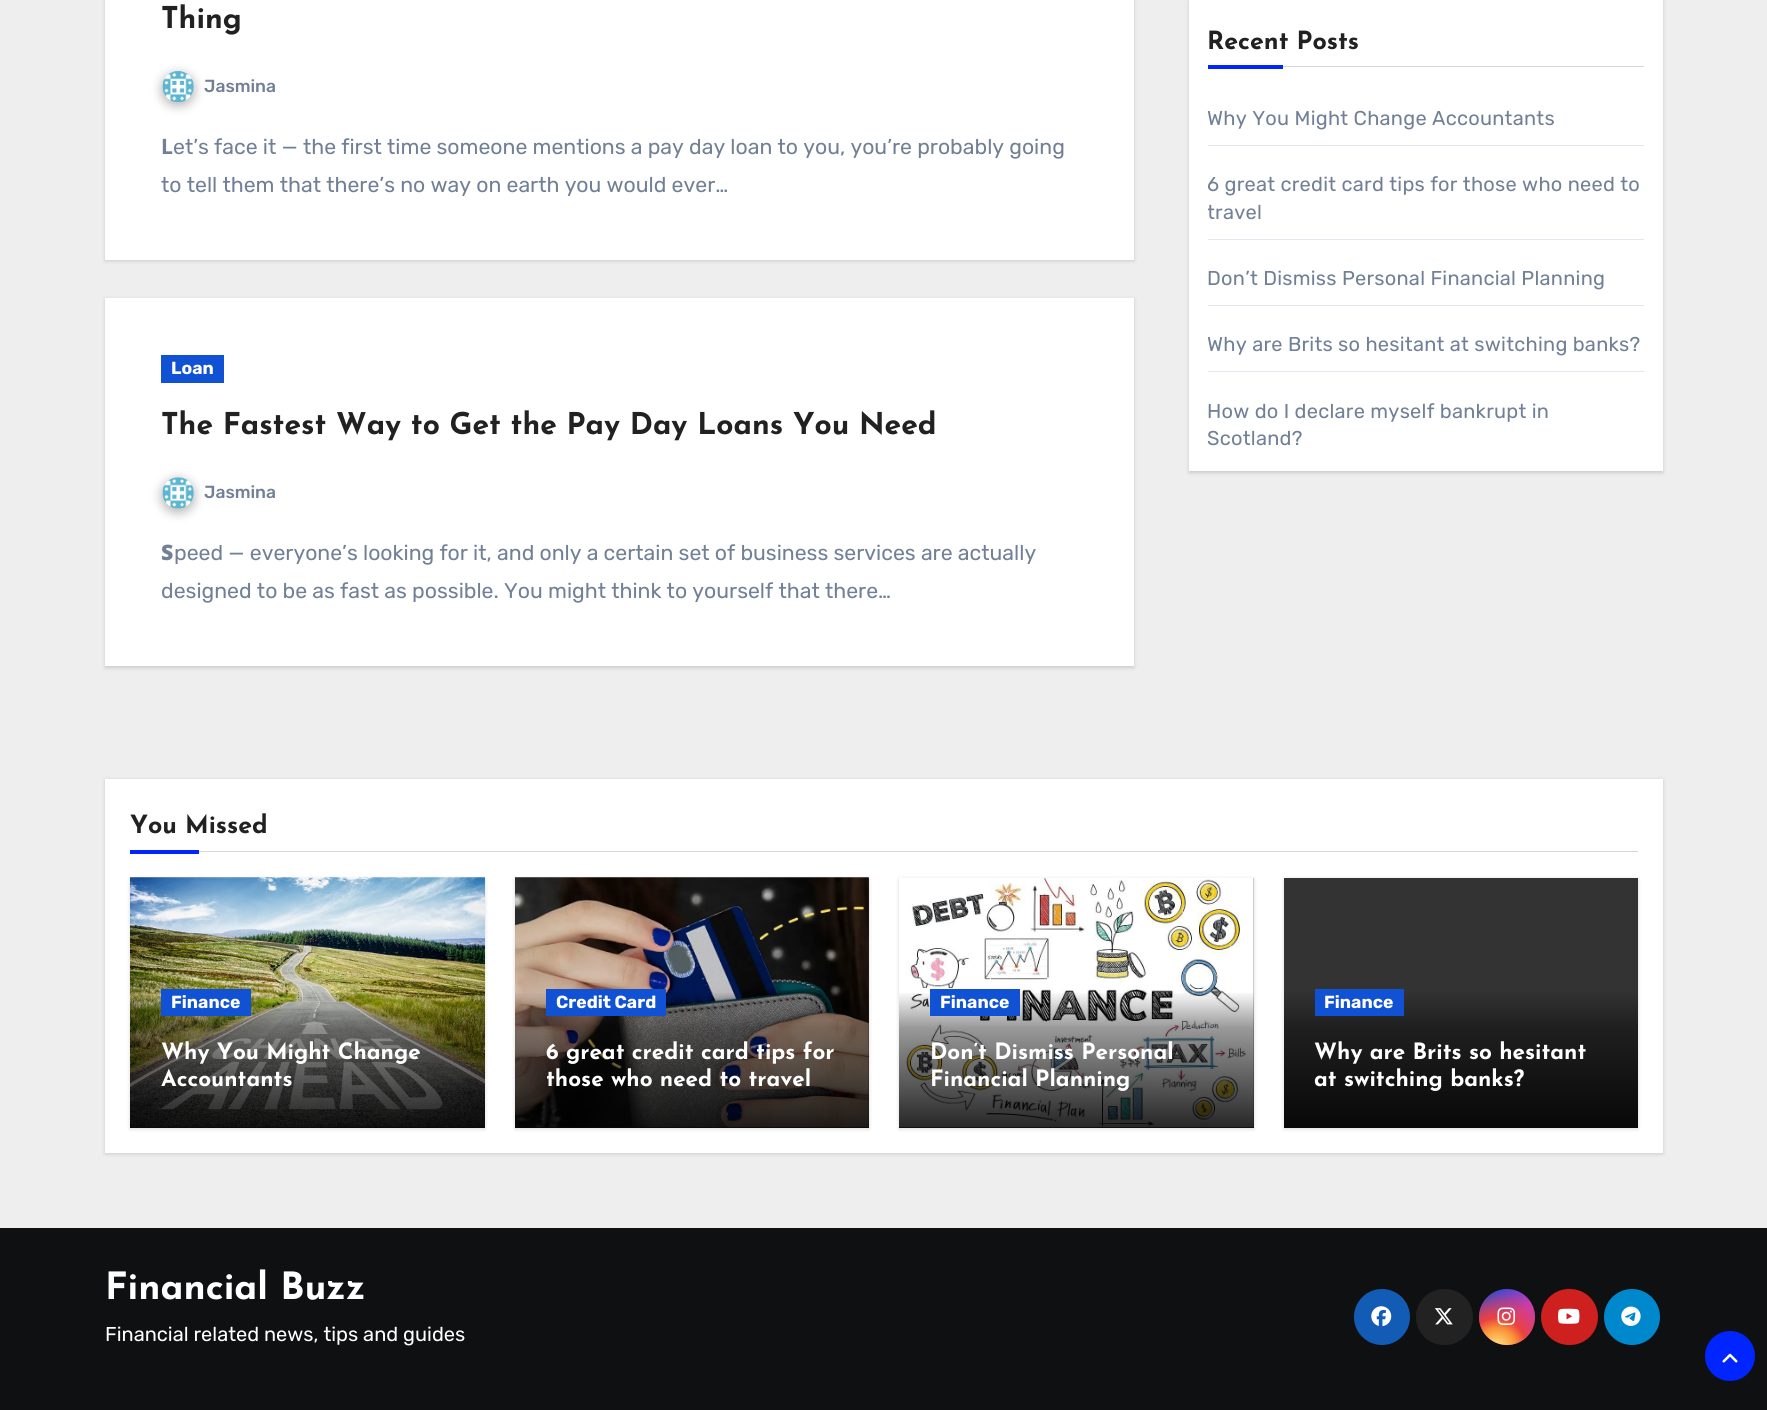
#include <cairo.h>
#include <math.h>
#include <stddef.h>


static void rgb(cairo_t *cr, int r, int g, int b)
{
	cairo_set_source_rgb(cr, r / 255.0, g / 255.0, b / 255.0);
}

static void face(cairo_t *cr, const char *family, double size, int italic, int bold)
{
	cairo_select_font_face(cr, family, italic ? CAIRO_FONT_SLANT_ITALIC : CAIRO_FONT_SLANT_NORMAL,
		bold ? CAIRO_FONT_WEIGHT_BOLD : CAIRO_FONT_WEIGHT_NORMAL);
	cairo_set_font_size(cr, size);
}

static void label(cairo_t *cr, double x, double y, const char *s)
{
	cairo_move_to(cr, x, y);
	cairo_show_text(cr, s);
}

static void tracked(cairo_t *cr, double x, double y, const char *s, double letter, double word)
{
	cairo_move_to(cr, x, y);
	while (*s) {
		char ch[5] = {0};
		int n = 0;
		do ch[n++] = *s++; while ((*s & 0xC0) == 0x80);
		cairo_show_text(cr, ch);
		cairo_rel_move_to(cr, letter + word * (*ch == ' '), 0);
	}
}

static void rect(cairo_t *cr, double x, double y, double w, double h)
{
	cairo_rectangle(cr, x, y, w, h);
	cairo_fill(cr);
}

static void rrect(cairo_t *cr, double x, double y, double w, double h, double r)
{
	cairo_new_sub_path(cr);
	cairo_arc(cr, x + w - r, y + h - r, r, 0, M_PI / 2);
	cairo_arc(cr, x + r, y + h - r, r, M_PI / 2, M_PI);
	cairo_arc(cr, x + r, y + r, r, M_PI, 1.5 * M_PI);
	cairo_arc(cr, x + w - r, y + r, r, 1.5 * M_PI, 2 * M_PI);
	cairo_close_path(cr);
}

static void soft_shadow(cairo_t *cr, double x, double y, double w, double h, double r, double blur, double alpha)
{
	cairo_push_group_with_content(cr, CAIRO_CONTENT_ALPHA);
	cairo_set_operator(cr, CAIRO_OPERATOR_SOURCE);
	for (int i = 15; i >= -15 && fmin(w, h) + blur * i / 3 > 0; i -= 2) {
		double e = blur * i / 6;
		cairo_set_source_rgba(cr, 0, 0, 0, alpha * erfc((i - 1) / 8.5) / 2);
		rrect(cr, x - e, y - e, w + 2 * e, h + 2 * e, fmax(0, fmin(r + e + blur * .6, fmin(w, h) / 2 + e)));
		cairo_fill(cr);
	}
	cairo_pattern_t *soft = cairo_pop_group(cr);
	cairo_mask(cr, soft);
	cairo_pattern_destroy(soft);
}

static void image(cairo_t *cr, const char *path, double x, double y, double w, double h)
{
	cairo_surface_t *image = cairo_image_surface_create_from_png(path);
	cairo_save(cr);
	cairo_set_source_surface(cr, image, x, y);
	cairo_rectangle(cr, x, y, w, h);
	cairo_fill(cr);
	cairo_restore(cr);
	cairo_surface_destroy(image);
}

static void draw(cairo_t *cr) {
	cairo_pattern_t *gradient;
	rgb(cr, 238, 238, 238);
	cairo_paint(cr);
	rgb(cr, 0, 0, 0);
	soft_shadow(cr, 105, -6, 1029, 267, 0, 2, 0.15);
	rgb(cr, 255, 255, 255);
	rect(cr, 105, 0, 1029, 260);
	face(cr, "Josefin Sans", 30, 0, 1);
	rgb(cr, 33, 33, 33);
	label(cr, 161, 28, "Thing");
	rgb(cr, 33, 33, 33);
	soft_shadow(cr, 161, 73, 34, 33, 16.5, 5, 0.3);
	image(cr, "image0.png", 162, 71, 32, 32);
	face(cr, "Rubik Medium", 17.5, 0, 0);
	rgb(cr, 113, 128, 150);
	label(cr, 204, 92, "Jasmina");
	face(cr, "Noto Sans", 21.25, 0, 1);
	label(cr, 161, 154, "L");
	face(cr, "Rubik Light", 21.25, 0, 0);
	label(cr, 173, 154, "et’s face it — the first time someone mentions a pay day loan to you, you’re probably going");
	label(cr, 161, 192, "to tell them that there’s no way on earth you would ever…");
	rgb(cr, 0, 0, 0);
	soft_shadow(cr, 105, 299, 1029, 369, 0, 2, 0.15);
	rgb(cr, 255, 255, 255);
	rect(cr, 105, 298, 1029, 368);
	rgb(cr, 17, 81, 211);
	rect(cr, 161, 355, 63, 28);
	face(cr, "Rubik", 17.5, 0, 1);
	rgb(cr, 255, 255, 255);
	label(cr, 171, 374, "Loan");
	face(cr, "Josefin Sans", 30, 0, 1);
	rgb(cr, 33, 33, 33);
	label(cr, 161, 434, "The Fastest Way to Get the Pay Day Loans You Need");
	rgb(cr, 33, 33, 33);
	soft_shadow(cr, 161, 479, 34, 34, 17, 5, 0.3);
	image(cr, "image1.png", 162, 477, 32, 32);
	face(cr, "Rubik Medium", 17.5, 0, 0);
	rgb(cr, 113, 128, 150);
	label(cr, 204, 498, "Jasmina");
	face(cr, "Noto Sans Black", 21.25, 0, 0);
	label(cr, 161, 560, "S");
	face(cr, "Rubik Light", 21.25, 0, 0);
	label(cr, 174, 560, "peed — everyone’s looking for it, and only a certain set of business services are actually");
	label(cr, 161, 598, "designed to be as fast as possible. You might think to yourself that there…");
	rgb(cr, 0, 0, 0);
	soft_shadow(cr, 1189, 1, 474, 472, 0, 2, 0.15);
	rgb(cr, 255, 255, 255);
	rect(cr, 1189, 0, 474, 471);
	rgb(cr, 215, 215, 215);
	rect(cr, 1283, 66, 361, 1);
	face(cr, "Josefin Sans", 25, 0, 1);
	rgb(cr, 33, 33, 33);
	label(cr, 1207, 49, "Recent Posts");
	rgb(cr, 0, 37, 255);
	rect(cr, 1208, 65, 75, 4);
	rgb(cr, 226, 232, 240);
	rect(cr, 1208, 145, 436, 1);
	face(cr, "Rubik Light", 20, 0, 0);
	rgb(cr, 113, 128, 150);
	tracked(cr, 1207, 125, "Why You Might Change Accountants", 0.25, 0);
	rgb(cr, 226, 232, 240);
	rect(cr, 1208, 239, 436, 1);
	rgb(cr, 113, 128, 150);
	tracked(cr, 1207, 191, "6 great credit card tips for those who need to", 0.25, 0);
	cairo_save(cr);
	cairo_rectangle(cr, 1208, 159, 436, 80);
	cairo_clip(cr);
	tracked(cr, 1207, 219, "travel", 0.25, 0);
	cairo_restore(cr);
	rgb(cr, 226, 232, 240);
	rect(cr, 1208, 305, 436, 1);
	rgb(cr, 113, 128, 150);
	tracked(cr, 1207, 285, "Don’t Dismiss Personal Financial Planning", 0.25, 0);
	rgb(cr, 226, 232, 240);
	rect(cr, 1208, 371, 436, 1);
	rgb(cr, 113, 128, 150);
	tracked(cr, 1207, 351, "Why are Brits so hesitant at switching banks?", 0.25, 0);
	tracked(cr, 1207, 418, "How do I declare myself bankrupt in", 0.25, 0);
	tracked(cr, 1207, 445, "Scotland?", 0.25, 0);
	rgb(cr, 0, 0, 0);
	soft_shadow(cr, 105, 780, 1558, 374, 0, 2, 0.15);
	rgb(cr, 255, 255, 255);
	rect(cr, 105, 779, 1558, 374);
	rgb(cr, 215, 215, 215);
	rect(cr, 199, 851, 1439, 1);
	face(cr, "Josefin Sans", 25, 0, 1);
	rgb(cr, 33, 33, 33);
	label(cr, 130, 833, "You Missed");
	rgb(cr, 0, 37, 255);
	rect(cr, 130, 850, 69, 4);
	rgb(cr, 0, 0, 0);
	soft_shadow(cr, 130, 879, 355, 250, 0, 2, 0.15);
	rgb(cr, 51, 51, 51);
	rect(cr, 130, 1127, 355, 1);
	image(cr, "image2.png", 130, 877, 355, 251);
	gradient = cairo_pattern_create_linear(308, 878, 308, 1128);
	cairo_pattern_add_color_stop_rgba(gradient, 0, 0, 0, 0, 0);
	cairo_pattern_add_color_stop_rgba(gradient, 0.45, 0, 0, 0, 0);
	cairo_pattern_add_color_stop_rgba(gradient, 0.6, 0, 0, 0, 0.4);
	cairo_pattern_add_color_stop_rgba(gradient, 1, 0, 0, 0, 0.85);
	cairo_set_source(cr, gradient);
	cairo_pattern_destroy(gradient);
	rect(cr, 130, 993, 355, 135);
	rgb(cr, 17, 81, 211);
	rect(cr, 161, 989, 90, 27);
	face(cr, "Rubik", 17.5, 0, 1);
	rgb(cr, 255, 255, 255);
	label(cr, 171, 1008, "Finance");
	face(cr, "Josefin Sans", 22.5, 0, 1);
	label(cr, 161, 1059, "Why You Might Change");
	label(cr, 161, 1086, "Accountants");
	rgb(cr, 0, 0, 0);
	soft_shadow(cr, 515, 879, 354, 250, 0, 2, 0.15);
	rgb(cr, 51, 51, 51);
	rect(cr, 515, 878, 354, 250);
	image(cr, "image3.png", 515, 877, 354, 251);
	gradient = cairo_pattern_create_linear(692, 878, 692, 1128);
	cairo_pattern_add_color_stop_rgba(gradient, 0, 0, 0, 0, 0);
	cairo_pattern_add_color_stop_rgba(gradient, 0.45, 0, 0, 0, 0);
	cairo_pattern_add_color_stop_rgba(gradient, 0.6, 0, 0, 0, 0.4);
	cairo_pattern_add_color_stop_rgba(gradient, 1, 0, 0, 0, 0.85);
	cairo_set_source(cr, gradient);
	cairo_pattern_destroy(gradient);
	rect(cr, 515, 993, 354, 135);
	rgb(cr, 17, 81, 211);
	rect(cr, 546, 989, 120, 27);
	face(cr, "Rubik", 17.5, 0, 1);
	rgb(cr, 255, 255, 255);
	label(cr, 556, 1008, "Credit Card");
	face(cr, "Josefin Sans", 22.5, 0, 1);
	label(cr, 546, 1059, "6 great credit card tips for");
	label(cr, 546, 1086, "those who need to travel");
	rgb(cr, 0, 0, 0);
	soft_shadow(cr, 899, 879, 355, 250, 0, 2, 0.15);
	rgb(cr, 51, 51, 51);
	rect(cr, 899, 878, 355, 250);
	image(cr, "image4.png", 899, 878, 355, 250);
	gradient = cairo_pattern_create_linear(1076, 878, 1076, 1128);
	cairo_pattern_add_color_stop_rgba(gradient, 0, 0, 0, 0, 0);
	cairo_pattern_add_color_stop_rgba(gradient, 0.45, 0, 0, 0, 0);
	cairo_pattern_add_color_stop_rgba(gradient, 0.6, 0, 0, 0, 0.4);
	cairo_pattern_add_color_stop_rgba(gradient, 1, 0, 0, 0, 0.85);
	cairo_set_source(cr, gradient);
	cairo_pattern_destroy(gradient);
	rect(cr, 899, 993, 355, 135);
	rgb(cr, 17, 81, 211);
	rect(cr, 930, 989, 90, 27);
	face(cr, "Rubik", 17.5, 0, 1);
	rgb(cr, 255, 255, 255);
	label(cr, 940, 1008, "Finance");
	face(cr, "Josefin Sans", 22.5, 0, 1);
	label(cr, 930, 1059, "Don’t Dismiss Personal");
	label(cr, 930, 1086, "Financial Planning");
	rgb(cr, 0, 0, 0);
	soft_shadow(cr, 1284, 879, 354, 250, 0, 2, 0.15);
	gradient = cairo_pattern_create_linear(1461, 878, 1461, 1128);
	cairo_pattern_add_color_stop_rgba(gradient, 0, 0.2, 0.2, 0.2, 1);
	cairo_pattern_add_color_stop_rgba(gradient, 0.45, 0.2, 0.2, 0.2, 1);
	cairo_pattern_add_color_stop_rgba(gradient, 0.6, 0.122, 0.122, 0.122, 1);
	cairo_pattern_add_color_stop_rgba(gradient, 1, 0.031, 0.031, 0.031, 1);
	cairo_set_source(cr, gradient);
	cairo_pattern_destroy(gradient);
	rect(cr, 1284, 878, 354, 250);
	rgb(cr, 17, 81, 211);
	rect(cr, 1315, 989, 89, 27);
	face(cr, "Rubik", 17.5, 0, 1);
	rgb(cr, 255, 255, 255);
	label(cr, 1324, 1008, "Finance");
	face(cr, "Josefin Sans", 22.5, 0, 1);
	label(cr, 1314, 1059, "Why are Brits so hesitant");
	label(cr, 1314, 1086, "at switching banks?");
	rgb(cr, 15, 16, 18);
	rect(cr, 0, 1228, 1767, 182);
	face(cr, "Josefin Sans", 37.5, 0, 1);
	rgb(cr, 255, 255, 255);
	label(cr, 105, 1299, "Financial Buzz");
	face(cr, "Rubik Light", 20, 0, 0);
	label(cr, 105, 1341, "Financial related news, tips and guides");
	rgb(cr, 19, 92, 182);
	cairo_new_path(cr);
	cairo_arc(cr, 1382, 1317, 28, 0, 2 * M_PI);
	cairo_fill(cr);
	image(cr, "image5.png", 1371, 1306, 21, 21);
	rgb(cr, 34, 34, 34);
	rrect(cr, 1416, 1289, 57, 56, 28);
	cairo_fill(cr);
	image(cr, "image6.png", 1434, 1308, 19, 17);
	gradient = cairo_pattern_create_linear(1479, 1289, 1535, 1345);
	cairo_pattern_add_color_stop_rgba(gradient, 0.12, 0.137, 0.294, 0.843, 1);
	cairo_pattern_add_color_stop_rgba(gradient, 0.58, 0.765, 0.235, 0.745, 1);
	cairo_set_source(cr, gradient);
	cairo_pattern_destroy(gradient);
	cairo_arc(cr, 1507, 1317, 28, 0, 2 * M_PI);
	cairo_fill(cr);
	gradient = cairo_pattern_create_radial(1497, 1348, 0, 1497, 1348, 71);
	cairo_pattern_add_color_stop_rgba(gradient, 0, 1, 0.882, 0.49, 1);
	cairo_pattern_add_color_stop_rgba(gradient, 0.1, 1, 0.804, 0.412, 1);
	cairo_pattern_add_color_stop_rgba(gradient, 0.28, 0.98, 0.569, 0.216, 1);
	cairo_pattern_add_color_stop_rgba(gradient, 0.42, 0.922, 0.255, 0.255, 1);
	cairo_pattern_add_color_stop_rgba(gradient, 0.82, 0.922, 0.255, 0.255, 0);
	cairo_set_source(cr, gradient);
	cairo_pattern_destroy(gradient);
	cairo_arc(cr, 1507, 1317, 28, 0, 2 * M_PI);
	cairo_fill(cr);
	image(cr, "image7.png", 1497, 1307, 18, 18);
	rgb(cr, 205, 32, 31);
	rrect(cr, 1541, 1289, 57, 56, 28);
	cairo_fill(cr);
	image(cr, "image8.png", 1558, 1308, 22, 16);
	rgb(cr, 0, 136, 204);
	cairo_arc(cr, 1632, 1317, 28, 0, 2 * M_PI);
	cairo_fill(cr);
	image(cr, "image9.png", 1621, 1306, 20, 20);
	rgb(cr, 0, 37, 255);
	cairo_arc(cr, 1730, 1356, 23.5, 0, 2 * M_PI);
	cairo_fill_preserve(cr);
	cairo_set_line_width(cr, 3);
	cairo_stroke(cr);
	image(cr, "image10.png", 1722, 1353, 16, 10);
}

int main(void) {
	cairo_surface_t *surface = cairo_image_surface_create(CAIRO_FORMAT_RGB24, 1767, 1410);
	cairo_t *cr = cairo_create(surface);
	cairo_font_options_t *options = cairo_font_options_create();
	cairo_font_options_set_hint_metrics(options, CAIRO_HINT_METRICS_OFF);
	cairo_font_options_set_hint_style(options, CAIRO_HINT_STYLE_NONE);
	cairo_set_font_options(cr, options);
	cairo_set_miter_limit(cr, 4);
	draw(cr);
	cairo_surface_write_to_png(surface, "render.png");
	cairo_font_options_destroy(options);
	cairo_destroy(cr);
	cairo_surface_destroy(surface);
	return 0;
}
